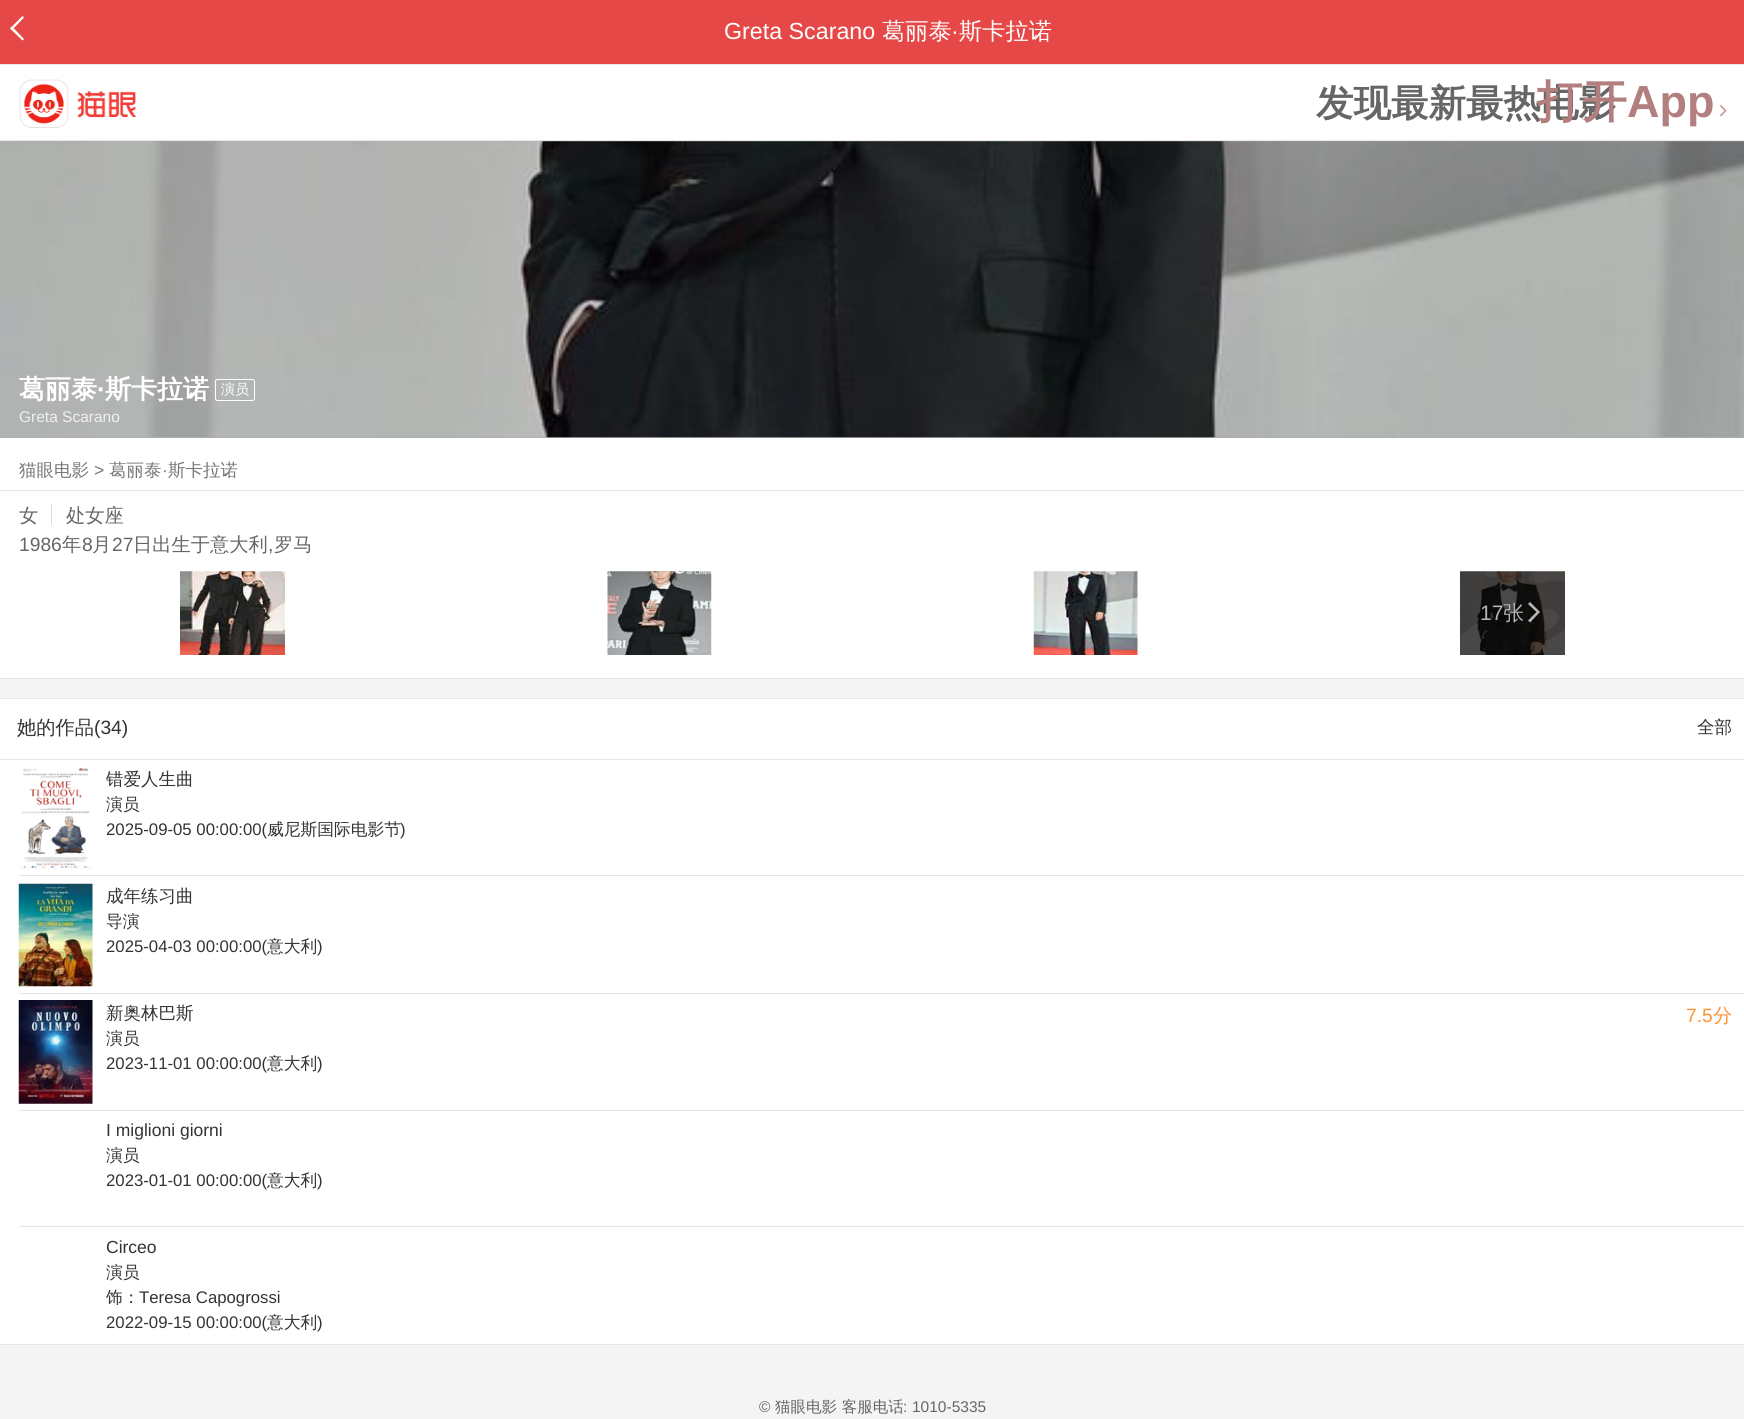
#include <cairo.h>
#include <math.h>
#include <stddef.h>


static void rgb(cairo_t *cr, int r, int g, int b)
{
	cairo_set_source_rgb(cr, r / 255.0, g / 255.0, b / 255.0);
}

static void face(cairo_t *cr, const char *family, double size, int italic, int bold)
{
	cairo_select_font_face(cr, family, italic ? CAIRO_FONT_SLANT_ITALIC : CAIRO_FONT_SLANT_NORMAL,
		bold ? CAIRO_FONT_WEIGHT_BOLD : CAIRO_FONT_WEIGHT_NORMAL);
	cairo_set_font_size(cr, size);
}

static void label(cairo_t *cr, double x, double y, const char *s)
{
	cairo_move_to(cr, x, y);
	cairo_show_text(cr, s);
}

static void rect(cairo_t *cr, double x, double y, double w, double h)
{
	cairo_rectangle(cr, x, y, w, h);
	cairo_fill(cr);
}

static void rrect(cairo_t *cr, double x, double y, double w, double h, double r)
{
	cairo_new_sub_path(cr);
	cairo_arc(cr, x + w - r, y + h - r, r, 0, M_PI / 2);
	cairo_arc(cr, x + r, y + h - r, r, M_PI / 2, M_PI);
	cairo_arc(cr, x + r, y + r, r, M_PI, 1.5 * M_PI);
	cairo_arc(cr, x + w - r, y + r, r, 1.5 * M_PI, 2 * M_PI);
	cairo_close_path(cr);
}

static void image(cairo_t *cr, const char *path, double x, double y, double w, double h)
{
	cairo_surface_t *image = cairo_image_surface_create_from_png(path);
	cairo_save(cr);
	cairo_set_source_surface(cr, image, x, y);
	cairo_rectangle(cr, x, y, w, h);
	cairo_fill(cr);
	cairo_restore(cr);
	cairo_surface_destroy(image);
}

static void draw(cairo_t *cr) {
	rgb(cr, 244, 244, 244);
	cairo_paint(cr);
	rgb(cr, 229, 72, 71);
	rect(cr, 0, 0, 1744, 64);
	rgb(cr, 255, 255, 255);
	cairo_new_path(cr);
	cairo_move_to(cr, 12, 26.5);
	cairo_line_to(cr, 24, 39);
	cairo_line_to(cr, 22.5, 40.5);
	cairo_line_to(cr, 10, 28.5);
	cairo_close_path(cr);
	cairo_fill(cr);
	cairo_new_path(cr);
	cairo_move_to(cr, 22.5, 16);
	cairo_line_to(cr, 24, 17.5);
	cairo_line_to(cr, 12, 30);
	cairo_line_to(cr, 10, 28.5);
	cairo_close_path(cr);
	cairo_fill(cr);
	face(cr, "Liberation Sans", 23.25, 0, 0);
	label(cr, 724, 39, "Greta Scarano");
	face(cr, "WenQuanYi Zen Hei Medium", 23.25, 0, 0);
	label(cr, 882, 39, "葛丽泰");
	face(cr, "Liberation Sans", 23.25, 0, 0);
	label(cr, 951, 39, "·");
	face(cr, "WenQuanYi Zen Hei Medium", 23.25, 0, 0);
	label(cr, 959, 39, "斯卡拉诺");
	rect(cr, 0, 65, 1744, 75);
	rgb(cr, 232, 232, 232);
	rect(cr, 0, 64, 1744, 1);
	rect(cr, 0, 140, 1744, 1);
	image(cr, "image0.png", 19, 79, 118, 49);
	face(cr, "WenQuanYi Zen Hei", 37.5, 0, 1);
	rgb(cr, 102, 102, 102);
	label(cr, 1316, 116, "发现最新最热电影");
	face(cr, "WenQuanYi Zen Hei", 45, 0, 1);
	rgb(cr, 179, 126, 126);
	label(cr, 1537, 117, "打开");
	face(cr, "Liberation Sans", 45, 0, 1);
	label(cr, 1627, 117, "App");
	image(cr, "image1.png", 1719, 104, 8, 13);
	rgb(cr, 255, 255, 255);
	rect(cr, 0, 438, 1744, 240);
	rgb(cr, 173, 173, 173);
	rect(cr, 0, 141, 1744, 297);
	image(cr, "image2.png", 0, 141, 1744, 297);
	face(cr, "WenQuanYi Zen Hei", 26, 0, 1);
	rgb(cr, 255, 255, 255);
	label(cr, 19, 398, "葛丽泰");
	face(cr, "Liberation Sans", 26, 0, 1);
	label(cr, 97, 398, "·");
	face(cr, "WenQuanYi Zen Hei", 26, 0, 1);
	label(cr, 105, 398, "斯卡拉诺");
	rrect(cr, 215.5, 379.5, 39, 21, 2);
	cairo_set_line_width(cr, 1);
	cairo_stroke(cr);
	face(cr, "WenQuanYi Zen Hei Medium", 14, 0, 0);
	label(cr, 221, 394, "演员");
	face(cr, "Liberation Sans", 15.5, 0, 0);
	rgb(cr, 239, 240, 240);
	label(cr, 19, 422, "Greta Scarano");
	face(cr, "WenQuanYi Zen Hei Medium", 17.5, 0, 0);
	rgb(cr, 119, 119, 119);
	label(cr, 19, 476, "猫眼电影");
	face(cr, "Liberation Sans", 17.5, 0, 0);
	label(cr, 94, 476, ">");
	face(cr, "WenQuanYi Zen Hei Medium", 17.5, 0, 0);
	label(cr, 109, 476, "葛丽泰");
	face(cr, "Liberation Sans", 17.5, 0, 0);
	label(cr, 162, 476, "·");
	face(cr, "WenQuanYi Zen Hei Medium", 17.5, 0, 0);
	label(cr, 168, 476, "斯卡拉诺");
	rgb(cr, 229, 229, 229);
	rect(cr, 0, 678, 1744, 1);
	rgb(cr, 230, 230, 230);
	rect(cr, 0, 490, 1744, 1);
	face(cr, "WenQuanYi Zen Hei Medium", 19.25, 0, 0);
	rgb(cr, 102, 102, 102);
	label(cr, 19, 522, "女");
	label(cr, 66, 522, "处女座");
	rgb(cr, 221, 221, 221);
	rect(cr, 51, 504, 1, 21);
	face(cr, "Liberation Sans", 19.25, 0, 0);
	rgb(cr, 102, 102, 102);
	label(cr, 19, 551, "1986");
	face(cr, "WenQuanYi Zen Hei Medium", 19.25, 0, 0);
	label(cr, 62, 551, "年");
	face(cr, "Liberation Sans", 19.25, 0, 0);
	label(cr, 82, 551, "8");
	face(cr, "WenQuanYi Zen Hei Medium", 19.25, 0, 0);
	label(cr, 92, 551, "月");
	face(cr, "Liberation Sans", 19.25, 0, 0);
	label(cr, 112, 551, "27");
	face(cr, "WenQuanYi Zen Hei Medium", 19.25, 0, 0);
	label(cr, 133, 551, "日出生于意大利");
	face(cr, "Liberation Sans", 19.25, 0, 0);
	label(cr, 268, 551, ",");
	face(cr, "WenQuanYi Zen Hei Medium", 19.25, 0, 0);
	label(cr, 274, 551, "罗马");
	image(cr, "image3.png", 180, 571, 105, 84);
	image(cr, "image4.png", 607, 571, 105, 84);
	image(cr, "image5.png", 1033, 571, 105, 84);
	image(cr, "image6.png", 1460, 571, 105, 84);
	face(cr, "Liberation Sans", 21, 0, 0);
	rgb(cr, 182, 182, 181);
	label(cr, 1480, 620, "17");
	face(cr, "WenQuanYi Zen Hei Medium", 21, 0, 0);
	label(cr, 1503, 620, "张");
	cairo_set_source_rgba(cr, 1, 1, 1, 0.7);
	cairo_new_path(cr);
	cairo_move_to(cr, 1540, 612);
	cairo_line_to(cr, 1530, 602);
	cairo_line_to(cr, 1528, 604);
	cairo_line_to(cr, 1536.5, 612);
	cairo_line_to(cr, 1528, 620.5);
	cairo_line_to(cr, 1530, 622.5);
	cairo_close_path(cr);
	cairo_fill(cr);
	rgb(cr, 255, 255, 255);
	rect(cr, 0, 699, 1744, 645);
	rgb(cr, 230, 230, 230);
	rect(cr, 0, 698, 1744, 1);
	rect(cr, 0, 1344, 1744, 1);
	rect(cr, 0, 759, 1744, 1);
	face(cr, "WenQuanYi Zen Hei Medium", 19.25, 0, 0);
	rgb(cr, 51, 51, 51);
	label(cr, 17, 734, "她的作品");
	face(cr, "Liberation Sans", 19.25, 0, 0);
	label(cr, 94, 734, "(34)");
	face(cr, "WenQuanYi Zen Hei Medium", 17.5, 0, 0);
	label(cr, 1697, 733, "全部");
	rgb(cr, 229, 229, 229);
	rect(cr, 19, 875, 1725, 1);
	image(cr, "image7.png", 19, 768, 73, 101);
	rgb(cr, 51, 51, 51);
	label(cr, 106, 785, "错爱人生曲");
	face(cr, "WenQuanYi Zen Hei Medium", 16.75, 0, 0);
	label(cr, 106, 810, "演员");
	face(cr, "Liberation Sans", 16.75, 0, 0);
	label(cr, 106, 835, "2025-09-05 00:00:00(");
	face(cr, "WenQuanYi Zen Hei Medium", 16.75, 0, 0);
	label(cr, 267, 835, "威尼斯国际电影节");
	face(cr, "Liberation Sans", 16.75, 0, 0);
	label(cr, 400, 835, ")");
	rgb(cr, 229, 229, 229);
	rect(cr, 19, 993, 1725, 1);
	image(cr, "image8.png", 18, 883, 75, 104);
	face(cr, "WenQuanYi Zen Hei Medium", 17.5, 0, 0);
	rgb(cr, 51, 51, 51);
	label(cr, 106, 902, "成年练习曲");
	face(cr, "WenQuanYi Zen Hei Medium", 16.75, 0, 0);
	label(cr, 106, 927, "导演");
	face(cr, "Liberation Sans", 16.75, 0, 0);
	label(cr, 106, 952, "2025-04-03 00:00:00(");
	face(cr, "WenQuanYi Zen Hei Medium", 16.75, 0, 0);
	label(cr, 267, 952, "意大利");
	face(cr, "Liberation Sans", 16.75, 0, 0);
	label(cr, 317, 952, ")");
	rgb(cr, 229, 229, 229);
	rect(cr, 19, 1110, 1725, 1);
	image(cr, "image9.png", 18, 1000, 75, 104);
	face(cr, "WenQuanYi Zen Hei Medium", 17.5, 0, 0);
	rgb(cr, 51, 51, 51);
	label(cr, 106, 1019, "新奥林巴斯");
	face(cr, "Liberation Sans", 19.25, 0, 0);
	rgb(cr, 255, 147, 52);
	label(cr, 1686, 1022, "7.5");
	face(cr, "WenQuanYi Zen Hei Medium", 19.25, 0, 0);
	label(cr, 1713, 1022, "分");
	face(cr, "WenQuanYi Zen Hei Medium", 16.75, 0, 0);
	rgb(cr, 51, 51, 51);
	label(cr, 106, 1044, "演员");
	face(cr, "Liberation Sans", 16.75, 0, 0);
	label(cr, 106, 1069, "2023-11-01 00:00:00(");
	face(cr, "WenQuanYi Zen Hei Medium", 16.75, 0, 0);
	label(cr, 267, 1069, "意大利");
	face(cr, "Liberation Sans", 16.75, 0, 0);
	label(cr, 317, 1069, ")");
	rgb(cr, 229, 229, 229);
	rect(cr, 19, 1226, 1725, 1);
	face(cr, "Liberation Sans", 17.5, 0, 0);
	rgb(cr, 51, 51, 51);
	label(cr, 106, 1136, "I miglioni giorni");
	face(cr, "WenQuanYi Zen Hei Medium", 16.75, 0, 0);
	label(cr, 106, 1161, "演员");
	face(cr, "Liberation Sans", 16.75, 0, 0);
	label(cr, 106, 1186, "2023-01-01 00:00:00(");
	face(cr, "WenQuanYi Zen Hei Medium", 16.75, 0, 0);
	label(cr, 267, 1186, "意大利");
	face(cr, "Liberation Sans", 16.75, 0, 0);
	label(cr, 317, 1186, ")");
	face(cr, "Liberation Sans", 17.5, 0, 0);
	label(cr, 106, 1253, "Circeo");
	face(cr, "WenQuanYi Zen Hei Medium", 16.75, 0, 0);
	label(cr, 106, 1278, "演员");
	label(cr, 106, 1303, "饰：");
	face(cr, "Liberation Sans", 16.75, 0, 0);
	label(cr, 139, 1303, "Teresa Capogrossi");
	label(cr, 106, 1328, "2022-09-15 00:00:00(");
	face(cr, "WenQuanYi Zen Hei Medium", 16.75, 0, 0);
	label(cr, 267, 1328, "意大利");
	face(cr, "Liberation Sans", 16.75, 0, 0);
	label(cr, 317, 1328, ")");
	face(cr, "Liberation Sans", 15.5, 0, 0);
	rgb(cr, 102, 102, 102);
	label(cr, 759, 1412, "©");
	face(cr, "WenQuanYi Zen Hei Medium", 15.5, 0, 0);
	label(cr, 775, 1412, "猫眼电影 客服电话");
	face(cr, "Liberation Sans", 15.5, 0, 0);
	label(cr, 903, 1412, ":");
	label(cr, 912, 1412, "1010-5335");
}

int main(void) {
	cairo_surface_t *surface = cairo_image_surface_create(CAIRO_FORMAT_RGB24, 1744, 1419);
	cairo_t *cr = cairo_create(surface);
	cairo_font_options_t *options = cairo_font_options_create();
	cairo_font_options_set_hint_metrics(options, CAIRO_HINT_METRICS_OFF);
	cairo_font_options_set_hint_style(options, CAIRO_HINT_STYLE_NONE);
	cairo_set_font_options(cr, options);
	cairo_set_miter_limit(cr, 4);
	draw(cr);
	cairo_surface_write_to_png(surface, "render.png");
	cairo_font_options_destroy(options);
	cairo_destroy(cr);
	cairo_surface_destroy(surface);
	return 0;
}
